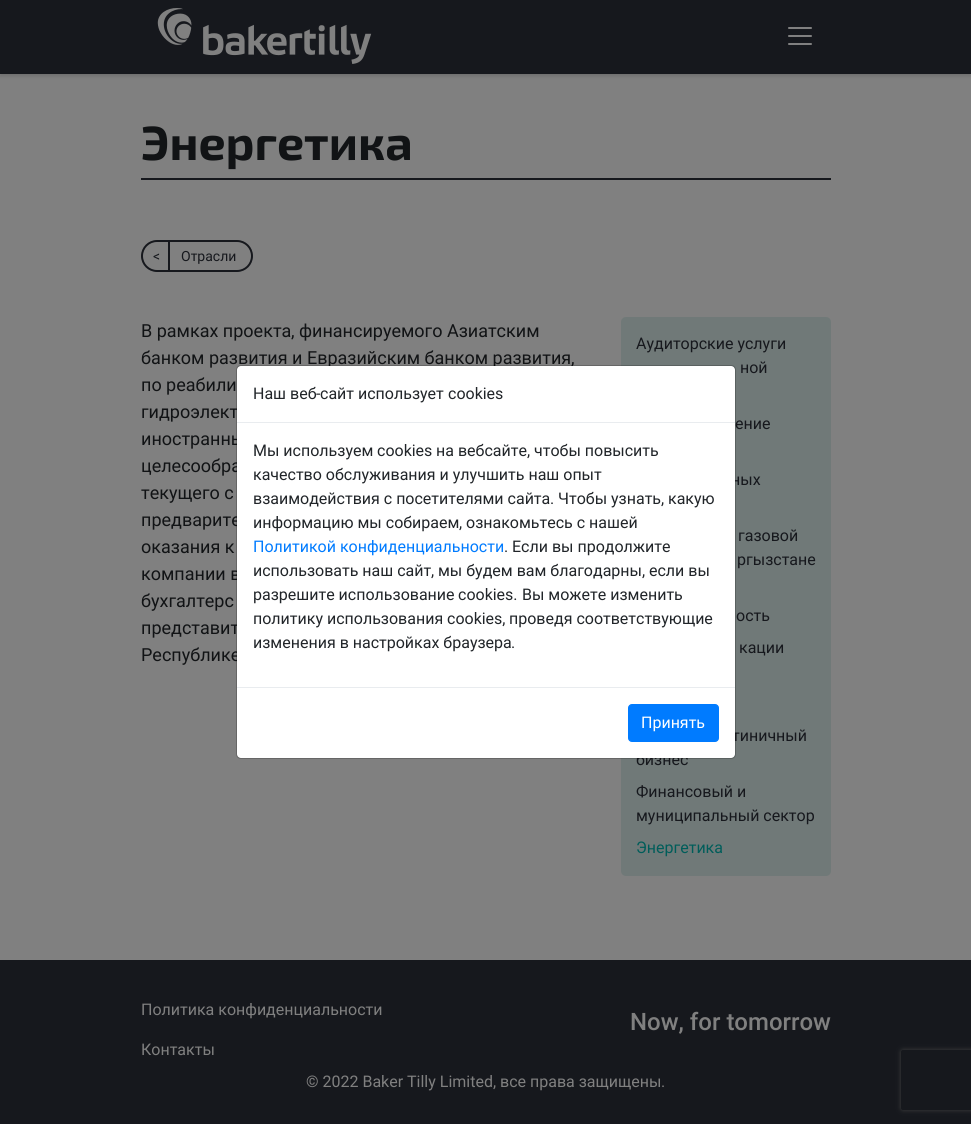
#include <cairo.h>
#include <math.h>
#include <stddef.h>


static void rgb(cairo_t *cr, int r, int g, int b)
{
	cairo_set_source_rgb(cr, r / 255.0, g / 255.0, b / 255.0);
}

static void face(cairo_t *cr, const char *family, double size, int italic, int bold)
{
	cairo_select_font_face(cr, family, italic ? CAIRO_FONT_SLANT_ITALIC : CAIRO_FONT_SLANT_NORMAL,
		bold ? CAIRO_FONT_WEIGHT_BOLD : CAIRO_FONT_WEIGHT_NORMAL);
	cairo_set_font_size(cr, size);
}

static void label(cairo_t *cr, double x, double y, const char *s)
{
	cairo_move_to(cr, x, y);
	cairo_show_text(cr, s);
}

static void rect(cairo_t *cr, double x, double y, double w, double h)
{
	cairo_rectangle(cr, x, y, w, h);
	cairo_fill(cr);
}

static void rrect(cairo_t *cr, double x, double y, double w, double h, double r)
{
	cairo_new_sub_path(cr);
	cairo_arc(cr, x + w - r, y + h - r, r, 0, M_PI / 2);
	cairo_arc(cr, x + r, y + h - r, r, M_PI / 2, M_PI);
	cairo_arc(cr, x + r, y + r, r, M_PI, 1.5 * M_PI);
	cairo_arc(cr, x + w - r, y + r, r, 1.5 * M_PI, 2 * M_PI);
	cairo_close_path(cr);
}

static void soft_shadow(cairo_t *cr, double x, double y, double w, double h, double r, double blur, double alpha)
{
	cairo_push_group_with_content(cr, CAIRO_CONTENT_ALPHA);
	cairo_set_operator(cr, CAIRO_OPERATOR_SOURCE);
	for (int i = 15; i >= -15 && fmin(w, h) + blur * i / 3 > 0; i -= 2) {
		double e = blur * i / 6;
		cairo_set_source_rgba(cr, 0, 0, 0, alpha * erfc((i - 1) / 8.5) / 2);
		rrect(cr, x - e, y - e, w + 2 * e, h + 2 * e, fmax(0, fmin(r + e + blur * .6, fmin(w, h) / 2 + e)));
		cairo_fill(cr);
	}
	cairo_pattern_t *soft = cairo_pop_group(cr);
	cairo_mask(cr, soft);
	cairo_pattern_destroy(soft);
}

static void image(cairo_t *cr, const char *path, double x, double y, double w, double h)
{
	cairo_surface_t *image = cairo_image_surface_create_from_png(path);
	cairo_save(cr);
	cairo_set_source_surface(cr, image, x, y);
	cairo_rectangle(cr, x, y, w, h);
	cairo_fill(cr);
	cairo_restore(cr);
	cairo_surface_destroy(image);
}

static void draw(cairo_t *cr) {
	rgb(cr, 128, 128, 128);
	cairo_paint(cr);
	rgb(cr, 0, 0, 0);
	soft_shadow(cr, 0, 2, 971, 74, 0, 2, 0.15);
	rgb(cr, 22, 24, 29);
	rect(cr, 0, 0, 971, 74);
	image(cr, "image0.png", 157, 8, 215, 56);
	image(cr, "image1.png", 788, 27, 24, 18);
	face(cr, "Exo 2", 48, 0, 1);
	rgb(cr, 17, 19, 21);
	label(cr, 141, 160, "Энергетика");
	rgb(cr, 22, 24, 29);
	rect(cr, 141, 178, 690, 2);
	rrect(cr, 142, 241, 110, 30, 15);
	cairo_stroke(cr);
	face(cr, "Roboto", 14, 0, 0);
	label(cr, 153, 261, "<");
	rect(cr, 168, 242, 2, 28);
	face(cr, "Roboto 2", 14, 0, 0);
	label(cr, 181, 261, "Отрасли");
	face(cr, "Roboto 2", 18, 0, 0);
	rgb(cr, 17, 19, 21);
	label(cr, 141, 337, "В рамках проекта");
	face(cr, "Roboto", 18, 0, 0);
	label(cr, 291, 337, ",");
	face(cr, "Roboto 2", 18, 0, 0);
	label(cr, 299, 337, "финансируемого Азиатским");
	label(cr, 141, 364, "банком развития и Евразийским банком развития");
	face(cr, "Roboto", 18, 0, 0);
	label(cr, 571, 364, ",");
	face(cr, "Roboto 2", 18, 0, 0);
	label(cr, 141, 391, "по реабили");
	label(cr, 141, 418, "гидроэлект");
	label(cr, 141, 445, "иностранны");
	label(cr, 141, 472, "целесообра");
	label(cr, 141, 499, "текущего с");
	label(cr, 141, 526, "предварите");
	label(cr, 141, 553, "оказания к");
	label(cr, 141, 580, "компании в");
	label(cr, 141, 607, "бухгалтерс");
	label(cr, 141, 634, "представит");
	label(cr, 141, 661, "Республике");
	rgb(cr, 112, 121, 120);
	rrect(cr, 621, 317, 210, 559, 5);
	cairo_fill(cr);
	face(cr, "Roboto 2", 16, 0, 0);
	rgb(cr, 22, 24, 29);
	label(cr, 636, 349, "Аудиторские услуги");
	label(cr, 740, 373, "ной");
	label(cr, 735, 429, "ение");
	label(cr, 731, 485, "ных");
	label(cr, 738, 541, "газовой");
	label(cr, 737, 565, "ргызстане");
	label(cr, 736, 621, "ость");
	label(cr, 739, 653, "кации");
	label(cr, 732, 741, "тиничный");
	label(cr, 636, 765, "бизнес");
	label(cr, 636, 797, "Финансовый и");
	label(cr, 636, 821, "муниципальный сектор");
	rgb(cr, 0, 93, 90);
	label(cr, 636, 853, "Энергетика");
	rgb(cr, 255, 255, 255);
	rrect(cr, 237, 366, 498, 392, 4);
	cairo_fill(cr);
	rrect(cr, 236.5, 365.5, 499, 393, 4.5);
	cairo_set_source_rgba(cr, 0, 0, 0, 0.2);
	cairo_set_line_width(cr, 1);
	cairo_stroke(cr);
	rgb(cr, 233, 236, 239);
	rect(cr, 237, 422, 498, 1);
	rgb(cr, 33, 37, 41);
	label(cr, 253, 399, "Наш веб");
	face(cr, "Roboto", 16, 0, 0);
	label(cr, 316, 399, "-");
	face(cr, "Roboto 2", 16, 0, 0);
	label(cr, 320, 399, "сайт использует");
	face(cr, "Roboto", 16, 0, 0);
	label(cr, 448, 399, "cookies");
	face(cr, "Roboto 2", 16, 0, 0);
	label(cr, 253, 456, "Мы используем");
	face(cr, "Roboto", 16, 0, 0);
	label(cr, 377, 456, "cookies");
	face(cr, "Roboto 2", 16, 0, 0);
	label(cr, 436, 456, "на вебсайте");
	face(cr, "Roboto", 16, 0, 0);
	label(cr, 527, 456, ",");
	face(cr, "Roboto 2", 16, 0, 0);
	label(cr, 534, 456, "чтобы повысить");
	label(cr, 253, 480, "качество обслуживания и улучшить наш опыт");
	label(cr, 253, 504, "взаимодействия с посетителями сайта");
	face(cr, "Roboto", 16, 0, 0);
	label(cr, 550, 504, ".");
	face(cr, "Roboto 2", 16, 0, 0);
	label(cr, 558, 504, "Чтобы узнать");
	face(cr, "Roboto", 16, 0, 0);
	label(cr, 661, 504, ",");
	face(cr, "Roboto 2", 16, 0, 0);
	label(cr, 668, 504, "какую");
	label(cr, 253, 528, "информацию мы собираем");
	face(cr, "Roboto", 16, 0, 0);
	label(cr, 459, 528, ",");
	face(cr, "Roboto 2", 16, 0, 0);
	label(cr, 466, 528, "ознакомьтесь с нашей");
	rgb(cr, 0, 123, 255);
	label(cr, 253, 552, "Политикой конфиденциальности");
	face(cr, "Roboto", 16, 0, 0);
	rgb(cr, 33, 37, 41);
	label(cr, 504, 552, ".");
	face(cr, "Roboto 2", 16, 0, 0);
	label(cr, 512, 552, "Если вы продолжите");
	label(cr, 253, 576, "использовать наш сайт");
	face(cr, "Roboto", 16, 0, 0);
	label(cr, 431, 576, ",");
	face(cr, "Roboto 2", 16, 0, 0);
	label(cr, 438, 576, "мы будем вам благодарны");
	face(cr, "Roboto", 16, 0, 0);
	label(cr, 642, 576, ",");
	face(cr, "Roboto 2", 16, 0, 0);
	label(cr, 649, 576, "если вы");
	label(cr, 253, 600, "разрешите использование");
	face(cr, "Roboto", 16, 0, 0);
	label(cr, 458, 600, "cookies.");
	face(cr, "Roboto 2", 16, 0, 0);
	label(cr, 522, 600, "Вы можете изменить");
	label(cr, 253, 624, "политику использования");
	face(cr, "Roboto", 16, 0, 0);
	label(cr, 447, 624, "cookies,");
	face(cr, "Roboto 2", 16, 0, 0);
	label(cr, 509, 624, "проведя соответствующие");
	label(cr, 253, 648, "изменения в настройках браузера");
	face(cr, "Roboto", 16, 0, 0);
	label(cr, 511, 648, ".");
	rgb(cr, 233, 236, 239);
	rect(cr, 237, 687, 498, 1);
	rgb(cr, 0, 123, 255);
	rrect(cr, 628.5, 704.5, 90, 37, 3.5);
	cairo_fill_preserve(cr);
	cairo_stroke(cr);
	face(cr, "Roboto 2", 16, 0, 0);
	rgb(cr, 255, 255, 255);
	label(cr, 641, 728, "Принять");
	rgb(cr, 22, 24, 29);
	rect(cr, 0, 960, 971, 164);
	rgb(cr, 128, 128, 128);
	label(cr, 141, 1015, "Политика конфиденциальности");
	label(cr, 141, 1055, "Контакты");
	face(cr, "Roboto Medium", 24, 0, 0);
	label(cr, 630, 1030, "Now, for tomorrow");
	face(cr, "Roboto", 16, 0, 0);
	label(cr, 306, 1087, "© 2022 Baker Tilly Limited,");
	face(cr, "Roboto 2", 16, 0, 0);
	label(cr, 500, 1087, "все права защищены");
	face(cr, "Roboto", 16, 0, 0);
	label(cr, 661, 1087, ".");
	cairo_save(cr);
	cairo_set_fill_rule(cr, CAIRO_FILL_RULE_EVEN_ODD);
	cairo_new_path(cr);
	cairo_move_to(cr, 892, 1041);
	cairo_line_to(cr, 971, 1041);
	cairo_line_to(cr, 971, 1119);
	cairo_line_to(cr, 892, 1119);
	cairo_close_path(cr);
	cairo_move_to(cr, 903, 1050);
	cairo_line_to(cr, 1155, 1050);
	cairo_curve_to(cr, 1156, 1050, 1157, 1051, 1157, 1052);
	cairo_line_to(cr, 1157, 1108);
	cairo_curve_to(cr, 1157, 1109, 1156, 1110, 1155, 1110);
	cairo_line_to(cr, 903, 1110);
	cairo_curve_to(cr, 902, 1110, 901, 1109, 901, 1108);
	cairo_line_to(cr, 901, 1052);
	cairo_curve_to(cr, 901, 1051, 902, 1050, 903, 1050);
	cairo_close_path(cr);
	cairo_clip(cr);
	rgb(cr, 64, 64, 64);
	soft_shadow(cr, 901, 1050, 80, 60, 2, 2.5, 1);
	cairo_restore(cr);
}

int main(void) {
	cairo_surface_t *surface = cairo_image_surface_create(CAIRO_FORMAT_RGB24, 971, 1124);
	cairo_t *cr = cairo_create(surface);
	cairo_font_options_t *options = cairo_font_options_create();
	cairo_font_options_set_hint_metrics(options, CAIRO_HINT_METRICS_OFF);
	cairo_font_options_set_hint_style(options, CAIRO_HINT_STYLE_NONE);
	cairo_set_font_options(cr, options);
	cairo_set_miter_limit(cr, 4);
	draw(cr);
	cairo_surface_write_to_png(surface, "render.png");
	cairo_font_options_destroy(options);
	cairo_destroy(cr);
	cairo_surface_destroy(surface);
	return 0;
}
